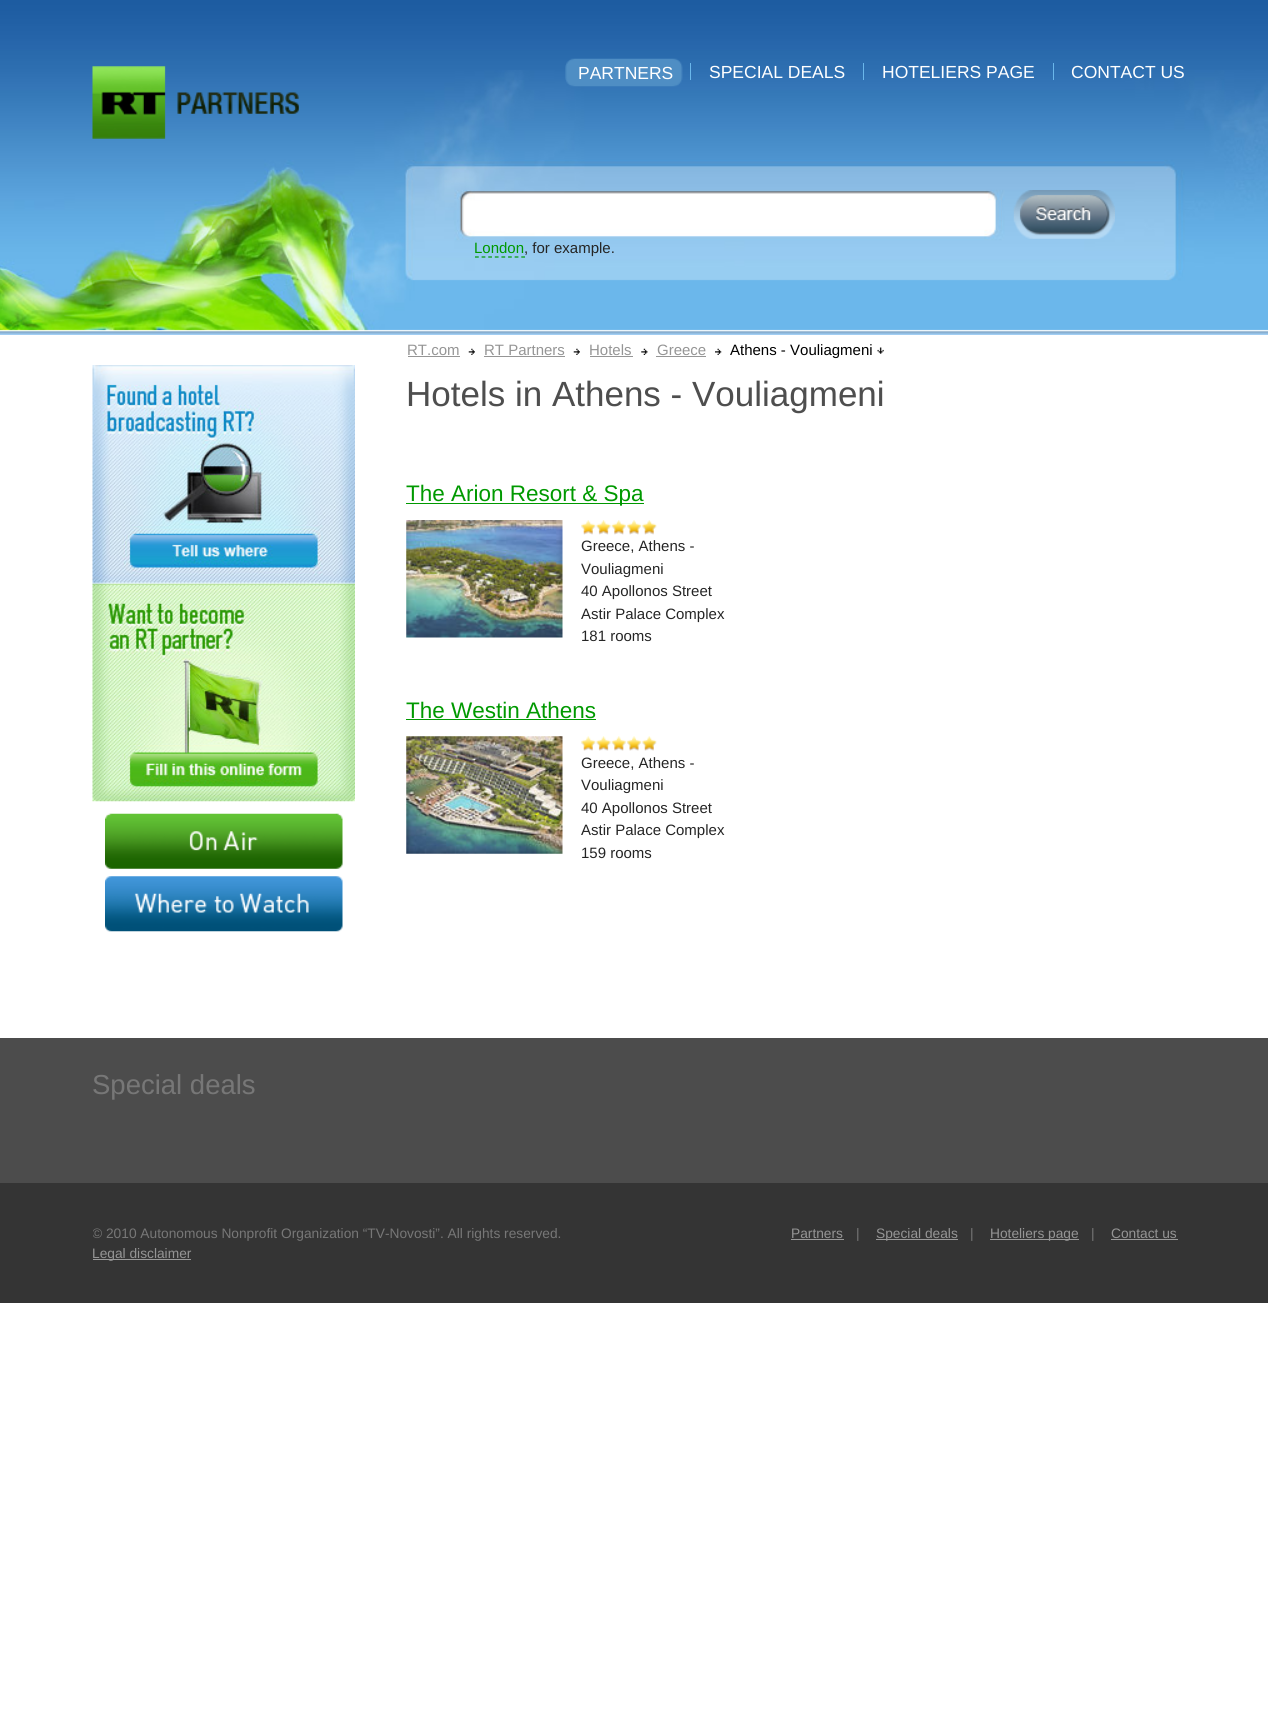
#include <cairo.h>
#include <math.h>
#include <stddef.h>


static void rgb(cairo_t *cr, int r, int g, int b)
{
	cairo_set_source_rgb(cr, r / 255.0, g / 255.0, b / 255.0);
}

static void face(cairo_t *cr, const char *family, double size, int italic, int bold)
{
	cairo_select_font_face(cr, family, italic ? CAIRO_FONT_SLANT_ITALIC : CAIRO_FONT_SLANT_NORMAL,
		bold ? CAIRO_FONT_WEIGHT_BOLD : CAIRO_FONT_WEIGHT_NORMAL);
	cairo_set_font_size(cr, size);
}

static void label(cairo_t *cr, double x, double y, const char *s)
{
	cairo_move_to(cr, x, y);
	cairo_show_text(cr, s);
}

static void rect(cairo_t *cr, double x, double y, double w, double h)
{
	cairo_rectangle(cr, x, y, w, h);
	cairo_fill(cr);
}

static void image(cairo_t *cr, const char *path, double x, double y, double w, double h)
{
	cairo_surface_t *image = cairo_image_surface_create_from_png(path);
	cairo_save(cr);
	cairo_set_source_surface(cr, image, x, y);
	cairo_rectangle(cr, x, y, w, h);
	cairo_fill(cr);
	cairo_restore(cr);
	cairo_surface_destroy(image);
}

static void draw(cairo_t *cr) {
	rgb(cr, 255, 255, 255);
	cairo_paint(cr);
	image(cr, "image0.png", 0, 0, 1268, 335);
	image(cr, "image1.png", 0, 70, 1268, 261);
	image(cr, "image2.png", 92, 66, 207, 73);
	image(cr, "image3.png", 565, 58, 10, 29);
	image(cr, "image4.png", 575, 58, 108, 29);
	face(cr, "Liberation Sans", 17.5, 0, 0);
	rgb(cr, 255, 255, 255);
	label(cr, 578, 79, "PARTNERS");
	rgb(cr, 106, 183, 235);
	rect(cr, 690, 63, 1, 17);
	rgb(cr, 255, 255, 255);
	label(cr, 709, 78, "SPECIAL DEALS");
	rgb(cr, 106, 183, 235);
	rect(cr, 863, 63, 1, 17);
	rgb(cr, 255, 255, 255);
	label(cr, 882, 78, "HOTELIERS PAGE");
	rgb(cr, 106, 183, 235);
	rect(cr, 1053, 63, 1, 17);
	rgb(cr, 255, 255, 255);
	label(cr, 1071, 78, "CONTACT US");
	rect(cr, 475, 194, 513, 6);
	image(cr, "image5.png", 1013, 190, 102, 49);
	face(cr, "Liberation Sans", 15, 0, 0);
	rgb(cr, 0, 153, 0);
	label(cr, 474, 253, "London");
	cairo_new_path(cr);
	cairo_move_to(cr, 475, 257);
	cairo_line_to(cr, 525, 257);
	cairo_set_line_width(cr, 1.2);
	cairo_set_dash(cr, (double[]){3.75, 2.86}, 2, 0);
	cairo_stroke(cr);
	rgb(cr, 37, 37, 37);
	label(cr, 524, 253, ", for example.");
	rgb(cr, 149, 149, 149);
	label(cr, 407, 355, "RT.com");
	rect(cr, 408, 356, 52, 1);
	image(cr, "image6.png", 468, 348, 7, 7);
	label(cr, 484, 355, "RT Partners");
	rect(cr, 484, 356, 81, 1);
	image(cr, "image7.png", 573, 348, 7, 7);
	label(cr, 589, 355, "Hotels");
	rect(cr, 590, 356, 43, 1);
	image(cr, "image8.png", 641, 348, 7, 7);
	label(cr, 657, 355, "Greece");
	rect(cr, 656, 356, 50, 1);
	image(cr, "image9.png", 715, 348, 7, 7);
	rgb(cr, 0, 0, 0);
	label(cr, 730, 355, "Athens - Vouliagmeni");
	image(cr, "image10.png", 877, 347, 7, 7);
	image(cr, "image11.png", 92, 365, 263, 219);
	image(cr, "image12.png", 92, 583, 263, 219);
	image(cr, "image13.png", 105, 813, 238, 56);
	image(cr, "image14.png", 105, 876, 238, 56);
	face(cr, "Liberation Sans", 35, 0, 0);
	rgb(cr, 78, 78, 78);
	label(cr, 406, 406, "Hotels in Athens - Vouliagmeni");
	rgb(cr, 0, 153, 0);
	rect(cr, 406, 503, 238, 1);
	face(cr, "Liberation Sans", 22.5, 0, 0);
	label(cr, 406, 501, "The Arion Resort & Spa");
	image(cr, "image15.png", 406, 520, 157, 118);
	image(cr, "image16.png", 581, 520, 76, 15);
	face(cr, "Liberation Sans", 15, 0, 0);
	rgb(cr, 37, 37, 37);
	label(cr, 581, 551, "Greece, Athens -");
	label(cr, 581, 574, "Vouliagmeni");
	label(cr, 581, 596, "40 Apollonos Street");
	label(cr, 581, 619, "Astir Palace Complex");
	label(cr, 581, 641, "181 rooms");
	face(cr, "Liberation Sans", 22.5, 0, 0);
	rgb(cr, 0, 153, 0);
	label(cr, 406, 718, "The Westin Athens");
	rect(cr, 406, 719, 190, 1);
	image(cr, "image17.png", 406, 736, 157, 118);
	image(cr, "image18.png", 581, 736, 76, 15);
	face(cr, "Liberation Sans", 15, 0, 0);
	rgb(cr, 37, 37, 37);
	label(cr, 581, 768, "Greece, Athens -");
	label(cr, 581, 790, "Vouliagmeni");
	label(cr, 581, 813, "40 Apollonos Street");
	label(cr, 581, 835, "Astir Palace Complex");
	label(cr, 581, 858, "159 rooms");
	rgb(cr, 76, 76, 76);
	rect(cr, 0, 1038, 1268, 145);
	face(cr, "Liberation Sans", 27.5, 0, 0);
	rgb(cr, 119, 119, 119);
	label(cr, 92, 1094, "Special deals");
	rgb(cr, 52, 52, 52);
	rect(cr, 0, 1183, 1268, 120);
	cairo_save(cr);
	cairo_rectangle(cr, 93, 1223, 1085, 40);
	cairo_clip(cr);
	face(cr, "Liberation Sans", 13.75, 0, 0);
	rgb(cr, 119, 119, 119);
	label(cr, 92, 1238, "© 2010 Autonomous Nonprofit Organization “TV-Novosti”. All rights reserved.");
	cairo_restore(cr);
	face(cr, "Liberation Sans", 13.75, 0, 0);
	rgb(cr, 149, 149, 149);
	label(cr, 791, 1238, "Partners");
	rgb(cr, 153, 153, 153);
	rect(cr, 791, 1239, 53, 1);
	rgb(cr, 119, 119, 119);
	label(cr, 856, 1238, "|");
	rgb(cr, 153, 153, 153);
	rect(cr, 876, 1239, 82, 1);
	rgb(cr, 149, 149, 149);
	label(cr, 876, 1238, "Special deals");
	rgb(cr, 119, 119, 119);
	label(cr, 970, 1238, "|");
	rgb(cr, 153, 153, 153);
	rect(cr, 990, 1239, 89, 1);
	rgb(cr, 149, 149, 149);
	label(cr, 990, 1238, "Hoteliers page");
	rgb(cr, 119, 119, 119);
	label(cr, 1091, 1238, "|");
	rgb(cr, 149, 149, 149);
	label(cr, 1111, 1238, "Contact us");
	rgb(cr, 153, 153, 153);
	rect(cr, 1111, 1239, 67, 1);
	rect(cr, 93, 1259, 98, 1);
	rgb(cr, 149, 149, 149);
	label(cr, 92, 1258, "Legal disclaimer");
}

int main(void) {
	cairo_surface_t *surface = cairo_image_surface_create(CAIRO_FORMAT_RGB24, 1268, 1709);
	cairo_t *cr = cairo_create(surface);
	cairo_font_options_t *options = cairo_font_options_create();
	cairo_font_options_set_hint_metrics(options, CAIRO_HINT_METRICS_OFF);
	cairo_font_options_set_hint_style(options, CAIRO_HINT_STYLE_NONE);
	cairo_set_font_options(cr, options);
	cairo_set_miter_limit(cr, 4);
	draw(cr);
	cairo_surface_write_to_png(surface, "render.png");
	cairo_font_options_destroy(options);
	cairo_destroy(cr);
	cairo_surface_destroy(surface);
	return 0;
}
